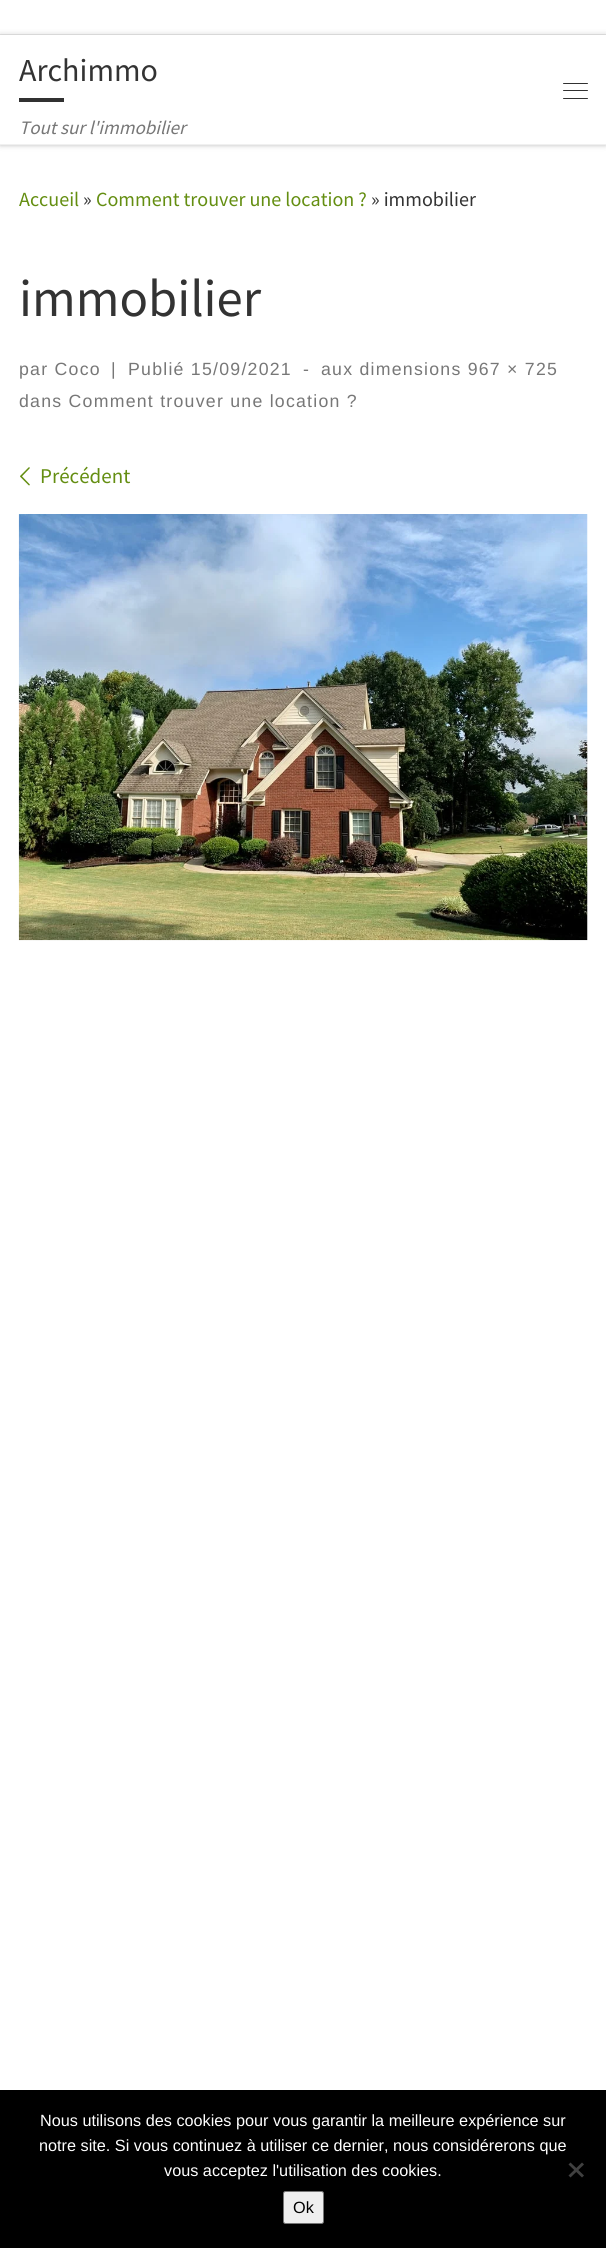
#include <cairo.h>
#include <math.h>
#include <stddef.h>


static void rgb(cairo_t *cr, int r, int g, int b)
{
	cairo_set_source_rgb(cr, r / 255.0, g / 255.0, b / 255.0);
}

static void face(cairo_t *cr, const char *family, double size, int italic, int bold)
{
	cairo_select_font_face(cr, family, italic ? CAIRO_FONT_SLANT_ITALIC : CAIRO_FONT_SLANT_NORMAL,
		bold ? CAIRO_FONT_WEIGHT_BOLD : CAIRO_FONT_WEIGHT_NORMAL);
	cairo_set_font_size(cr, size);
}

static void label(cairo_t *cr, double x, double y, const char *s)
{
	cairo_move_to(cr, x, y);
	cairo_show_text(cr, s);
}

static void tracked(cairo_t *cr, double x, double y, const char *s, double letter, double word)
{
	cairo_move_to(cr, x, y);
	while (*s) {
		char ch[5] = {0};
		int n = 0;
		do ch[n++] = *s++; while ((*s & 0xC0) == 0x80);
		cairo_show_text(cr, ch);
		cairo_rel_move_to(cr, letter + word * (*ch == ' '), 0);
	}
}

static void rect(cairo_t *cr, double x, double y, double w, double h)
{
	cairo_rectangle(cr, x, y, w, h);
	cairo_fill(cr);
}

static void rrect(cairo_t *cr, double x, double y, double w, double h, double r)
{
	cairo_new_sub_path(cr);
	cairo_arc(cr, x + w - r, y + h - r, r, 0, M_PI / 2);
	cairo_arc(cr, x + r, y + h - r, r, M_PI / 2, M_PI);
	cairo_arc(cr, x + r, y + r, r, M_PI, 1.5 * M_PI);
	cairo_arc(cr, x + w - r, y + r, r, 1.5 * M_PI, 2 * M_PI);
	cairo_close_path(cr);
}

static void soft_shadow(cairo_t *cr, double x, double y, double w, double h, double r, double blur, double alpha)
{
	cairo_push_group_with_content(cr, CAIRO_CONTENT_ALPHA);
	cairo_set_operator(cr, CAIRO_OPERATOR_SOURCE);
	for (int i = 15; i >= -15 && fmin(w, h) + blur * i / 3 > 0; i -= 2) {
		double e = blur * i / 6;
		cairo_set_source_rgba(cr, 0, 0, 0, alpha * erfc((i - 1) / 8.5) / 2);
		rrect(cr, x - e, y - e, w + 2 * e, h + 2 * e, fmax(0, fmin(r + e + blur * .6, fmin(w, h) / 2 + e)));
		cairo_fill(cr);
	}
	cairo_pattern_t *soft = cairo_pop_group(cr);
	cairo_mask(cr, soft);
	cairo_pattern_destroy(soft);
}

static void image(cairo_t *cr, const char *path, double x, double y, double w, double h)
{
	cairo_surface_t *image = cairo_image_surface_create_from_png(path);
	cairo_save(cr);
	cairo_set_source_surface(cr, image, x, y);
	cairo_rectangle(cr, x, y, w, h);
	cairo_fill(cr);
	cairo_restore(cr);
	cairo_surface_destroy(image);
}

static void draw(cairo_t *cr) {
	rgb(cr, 255, 255, 255);
	cairo_paint(cr);
	rgb(cr, 102, 102, 102);
	soft_shadow(cr, 0, -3, 606, 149, 0, 1, 0.08);
	rgb(cr, 255, 255, 255);
	rect(cr, 0, 0, 606, 34);
	rgb(cr, 236, 236, 236);
	rect(cr, 0, 34, 606, 1);
	rgb(cr, 0, 0, 0);
	soft_shadow(cr, 0, 35, 606, 110, 0, 3, 0.2);
	rgb(cr, 255, 255, 255);
	rect(cr, 0, 35, 606, 109);
	face(cr, "Source Sans Pro", 32, 0, 0);
	rgb(cr, 51, 51, 51);
	label(cr, 19, 81, "Archimmo");
	rgb(cr, 49, 49, 49);
	rect(cr, 19, 98, 45, 4);
	face(cr, "Source Sans Pro", 19, 1, 0);
	rgb(cr, 119, 119, 119);
	label(cr, 19, 134, "Tout sur l'immobilier");
	rgb(cr, 49, 49, 49);
	rrect(cr, 563, 83, 25, 1, 0.5);
	cairo_fill(cr);
	rrect(cr, 563, 90, 25, 1, 0.5);
	cairo_fill(cr);
	rrect(cr, 563, 98, 25, 1, 0.5);
	cairo_fill(cr);
	rgb(cr, 240, 240, 240);
	rect(cr, 0, 144, 606, 1);
	face(cr, "Source Sans Pro", 20.1, 0, 0);
	rgb(cr, 100, 142, 17);
	label(cr, 19, 206, "Accueil");
	rgb(cr, 51, 51, 51);
	label(cr, 83, 206, "»");
	rgb(cr, 100, 142, 17);
	label(cr, 96, 206, "Comment trouver une location ?");
	rgb(cr, 51, 51, 51);
	label(cr, 371, 206, "» immobilier");
	face(cr, "Source Sans Pro", 52.75, 0, 0);
	label(cr, 19, 316, "immobilier");
	face(cr, "Liberation Sans", 17.7, 0, 0);
	rgb(cr, 119, 119, 119);
	tracked(cr, 19, 375, "par Coco", 1.25, 0);
	tracked(cr, 111, 375, "|", 1.25, 0);
	tracked(cr, 128, 375, "Publié 15/09/2021", 1.25, 0);
	tracked(cr, 303, 375, "-", 1.25, 0);
	tracked(cr, 321, 375, "aux dimensions 967 × 725", 1.25, 0);
	tracked(cr, 19, 407, "dans Comment trouver une location ?", 1.25, 0);
	image(cr, "image0.png", 20, 467, 10, 19);
	face(cr, "Source Sans Pro", 21, 0, 0);
	rgb(cr, 100, 142, 17);
	label(cr, 40, 483, "Précédent");
	image(cr, "image1.png", 18, 514, 570, 427);
	rgb(cr, 0, 0, 0);
	rect(cr, 0, 2090, 606, 158);
	face(cr, "Liberation Sans", 16.25, 0, 0);
	rgb(cr, 255, 255, 255);
	label(cr, 40, 2126, "Nous utilisons des cookies pour vous garantir la meilleure expérience sur");
	label(cr, 39, 2151, "notre site. Si vous continuez à utiliser ce dernier, nous considérerons que");
	label(cr, 164, 2176, "vous acceptez l'utilisation des cookies.");
	rgb(cr, 64, 64, 64);
	cairo_new_path(cr);
	cairo_move_to(cr, 582, 2162.5);
	cairo_line_to(cr, 584, 2164.5);
	cairo_line_to(cr, 570.5, 2177.5);
	cairo_line_to(cr, 568.5, 2175.5);
	cairo_close_path(cr);
	cairo_fill(cr);
	cairo_new_path(cr);
	cairo_move_to(cr, 568.5, 2164.5);
	cairo_line_to(cr, 570.5, 2162.5);
	cairo_line_to(cr, 584, 2175.5);
	cairo_line_to(cr, 582, 2177.5);
	cairo_close_path(cr);
	cairo_fill(cr);
	rgb(cr, 239, 239, 239);
	rrect(cr, 283.5, 2191.5, 40, 32, 2);
	cairo_fill_preserve(cr);
	rgb(cr, 118, 118, 118);
	cairo_set_line_width(cr, 1);
	cairo_stroke(cr);
	rgb(cr, 0, 0, 0);
	label(cr, 293, 2213, "Ok");
}

int main(void) {
	cairo_surface_t *surface = cairo_image_surface_create(CAIRO_FORMAT_RGB24, 606, 2248);
	cairo_t *cr = cairo_create(surface);
	cairo_font_options_t *options = cairo_font_options_create();
	cairo_font_options_set_hint_metrics(options, CAIRO_HINT_METRICS_OFF);
	cairo_font_options_set_hint_style(options, CAIRO_HINT_STYLE_NONE);
	cairo_set_font_options(cr, options);
	cairo_set_miter_limit(cr, 4);
	draw(cr);
	cairo_surface_write_to_png(surface, "render.png");
	cairo_font_options_destroy(options);
	cairo_destroy(cr);
	cairo_surface_destroy(surface);
	return 0;
}
